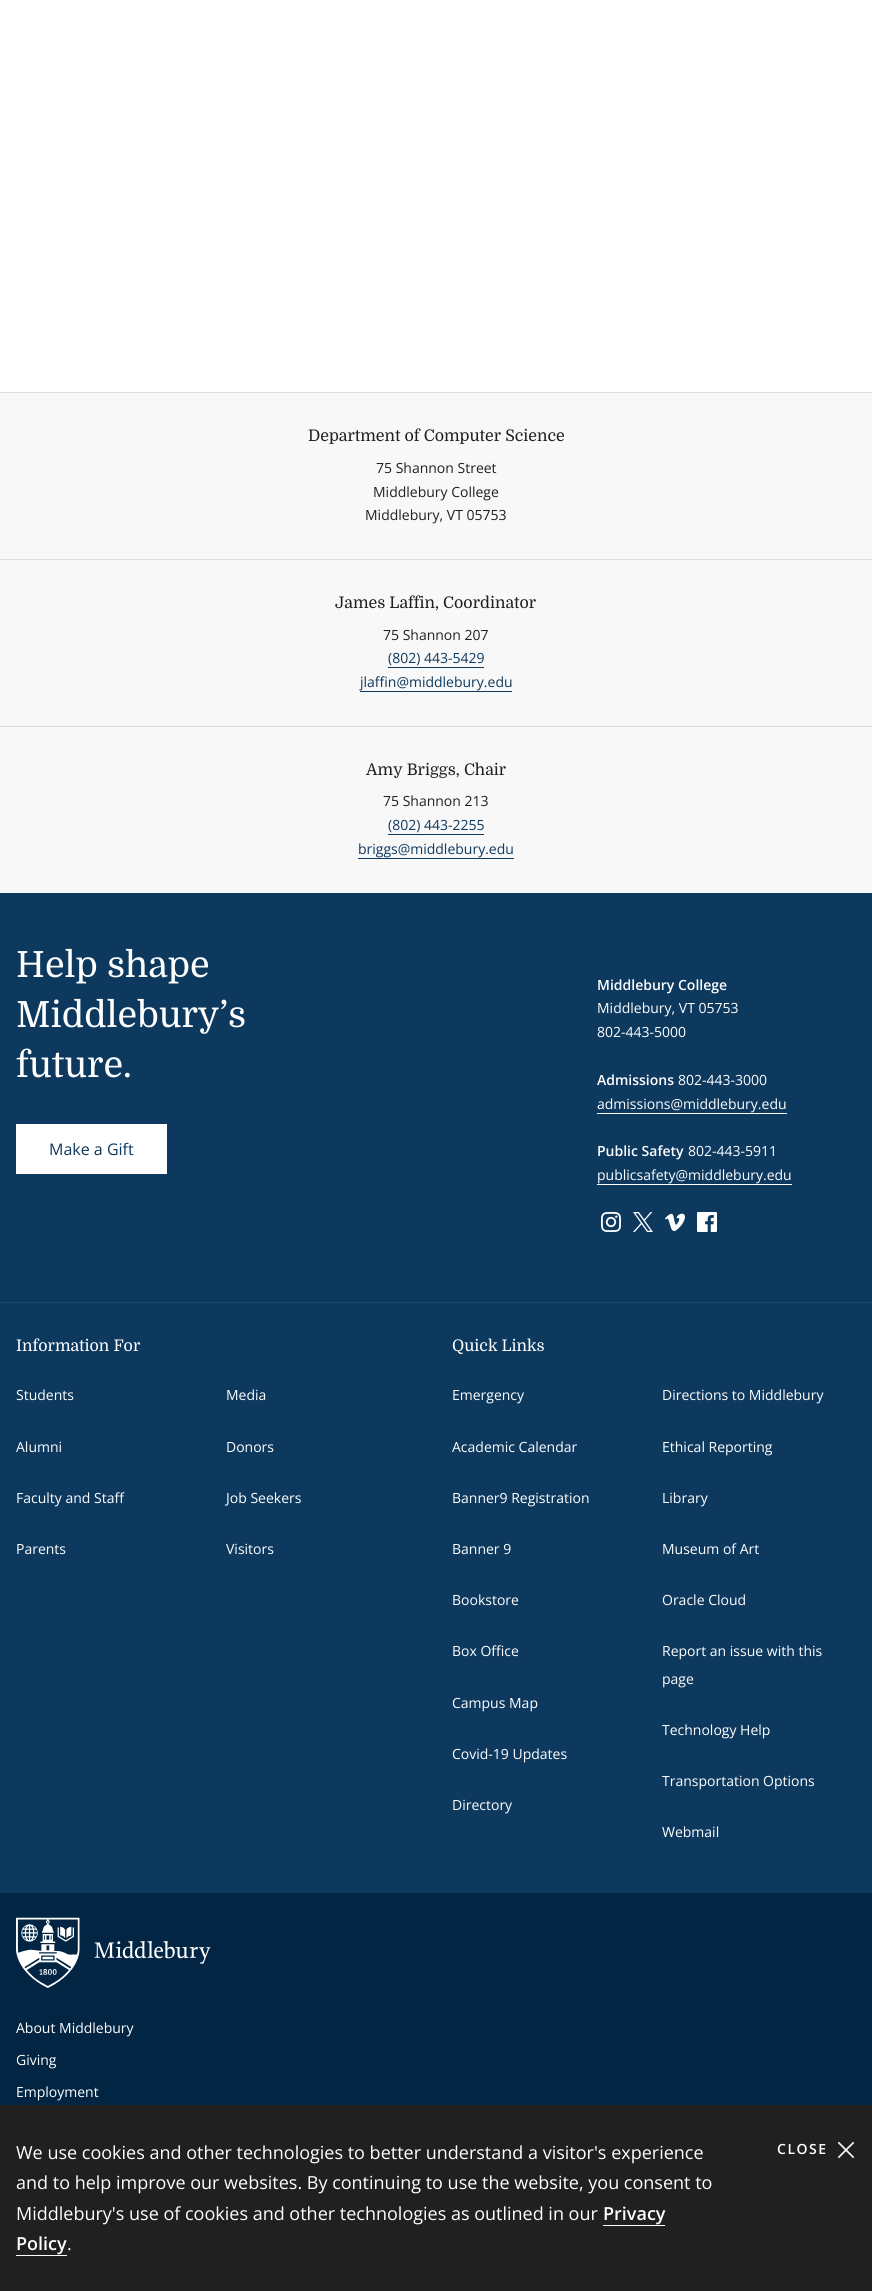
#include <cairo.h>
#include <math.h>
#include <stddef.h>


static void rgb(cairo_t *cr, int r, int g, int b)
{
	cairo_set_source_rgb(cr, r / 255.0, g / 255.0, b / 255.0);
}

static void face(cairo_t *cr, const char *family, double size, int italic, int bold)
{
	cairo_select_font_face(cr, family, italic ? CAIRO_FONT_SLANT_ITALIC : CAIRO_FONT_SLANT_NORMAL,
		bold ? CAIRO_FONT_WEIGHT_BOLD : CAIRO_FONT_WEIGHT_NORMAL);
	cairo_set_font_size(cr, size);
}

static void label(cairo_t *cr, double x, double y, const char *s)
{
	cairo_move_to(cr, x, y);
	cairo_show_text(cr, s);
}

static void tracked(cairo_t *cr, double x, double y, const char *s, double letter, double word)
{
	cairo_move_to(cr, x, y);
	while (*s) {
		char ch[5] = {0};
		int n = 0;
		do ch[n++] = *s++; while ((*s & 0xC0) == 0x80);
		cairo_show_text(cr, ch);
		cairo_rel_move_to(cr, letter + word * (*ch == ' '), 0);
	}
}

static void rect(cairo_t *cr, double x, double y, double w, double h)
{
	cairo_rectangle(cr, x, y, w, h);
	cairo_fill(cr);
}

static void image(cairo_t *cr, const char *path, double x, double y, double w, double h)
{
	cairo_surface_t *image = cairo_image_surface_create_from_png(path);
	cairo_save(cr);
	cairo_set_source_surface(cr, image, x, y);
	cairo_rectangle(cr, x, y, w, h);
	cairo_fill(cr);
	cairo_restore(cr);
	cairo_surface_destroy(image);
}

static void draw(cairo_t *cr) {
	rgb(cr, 255, 255, 255);
	cairo_paint(cr);
	rgb(cr, 248, 248, 248);
	rect(cr, 0, 393, 872, 500);
	rgb(cr, 222, 222, 222);
	rect(cr, 0, 392, 872, 1);
	rect(cr, 0, 559, 872, 1);
	face(cr, "Domine", 16, 0, 0);
	rgb(cr, 32, 32, 32);
	label(cr, 308, 441, "Department of Computer Science");
	face(cr, "Open Sans", 14, 0, 0);
	label(cr, 376, 473, "75 Shannon Street");
	label(cr, 373, 497, "Middlebury College");
	label(cr, 365, 520, "Middlebury, VT 05753");
	rgb(cr, 222, 222, 222);
	rect(cr, 0, 726, 872, 1);
	face(cr, "Domine", 16, 0, 0);
	rgb(cr, 32, 32, 32);
	label(cr, 335, 608, "James Laffin, Coordinator");
	face(cr, "Open Sans", 14, 0, 0);
	label(cr, 383, 640, "75 Shannon 207");
	rgb(cr, 13, 57, 95);
	label(cr, 388, 663, "(802) 443-5429");
	rect(cr, 388, 667, 96, 1);
	label(cr, 360, 687, "jlaffin@middlebury.edu");
	rect(cr, 360, 691, 152, 1);
	face(cr, "Domine", 16, 0, 0);
	rgb(cr, 32, 32, 32);
	label(cr, 366, 775, "Amy Briggs, Chair");
	face(cr, "Open Sans", 14, 0, 0);
	label(cr, 383, 806, "75 Shannon 213");
	rgb(cr, 13, 57, 95);
	label(cr, 388, 830, "(802) 443-2255");
	rect(cr, 388, 834, 96, 1);
	label(cr, 358, 854, "briggs@middlebury.edu");
	rect(cr, 358, 858, 156, 1);
	rect(cr, 0, 893, 872, 1000);
	face(cr, "Domine", 36, 0, 0);
	rgb(cr, 255, 255, 255);
	label(cr, 16, 977, "Help shape");
	label(cr, 16, 1027, "Middlebury’s");
	label(cr, 16, 1077, "future.");
	rect(cr, 16, 1124, 151, 50);
	face(cr, "Open Sans", 16, 0, 0);
	rgb(cr, 13, 57, 95);
	label(cr, 49, 1155, "Make a Gift");
	face(cr, "Open Sans SemiBold", 14, 0, 0);
	rgb(cr, 255, 255, 255);
	label(cr, 597, 990, "Middlebury College");
	face(cr, "Open Sans", 14, 0, 0);
	label(cr, 597, 1013, "Middlebury, VT 05753");
	label(cr, 597, 1037, "802-443-5000");
	face(cr, "Open Sans SemiBold", 14, 0, 0);
	label(cr, 597, 1085, "Admissions");
	face(cr, "Open Sans", 14, 0, 0);
	label(cr, 678, 1085, "802-443-3000");
	label(cr, 597, 1109, "admissions@middlebury.edu");
	rect(cr, 597, 1113, 190, 1);
	face(cr, "Open Sans SemiBold", 14, 0, 0);
	label(cr, 597, 1156, "Public Safety");
	face(cr, "Open Sans", 14, 0, 0);
	label(cr, 688, 1156, "802-443-5911");
	label(cr, 597, 1180, "publicsafety@middlebury.edu");
	rect(cr, 597, 1184, 195, 1);
	image(cr, "image0.png", 601, 1212, 20, 20);
	image(cr, "image1.png", 633, 1212, 20, 20);
	image(cr, "image2.png", 665, 1213, 20, 19);
	image(cr, "image3.png", 697, 1212, 20, 20);
	rgb(cr, 23, 72, 114);
	rect(cr, 0, 1302, 872, 1);
	face(cr, "Domine", 16, 0, 0);
	rgb(cr, 255, 255, 255);
	label(cr, 16, 1351, "Information For");
	face(cr, "Open Sans", 14, 0, 0);
	label(cr, 16, 1400, "Students");
	label(cr, 226, 1400, "Media");
	label(cr, 16, 1452, "Alumni");
	label(cr, 226, 1452, "Donors");
	label(cr, 16, 1503, "Faculty and Staff");
	label(cr, 226, 1503, "Job Seekers");
	label(cr, 16, 1554, "Parents");
	label(cr, 226, 1554, "Visitors");
	face(cr, "Domine", 16, 0, 0);
	label(cr, 452, 1351, "Quick Links");
	face(cr, "Open Sans", 14, 0, 0);
	label(cr, 452, 1400, "Emergency");
	label(cr, 662, 1400, "Directions to Middlebury");
	label(cr, 452, 1452, "Academic Calendar");
	label(cr, 662, 1452, "Ethical Reporting");
	label(cr, 452, 1503, "Banner9 Registration");
	label(cr, 662, 1503, "Library");
	label(cr, 452, 1554, "Banner 9");
	label(cr, 662, 1554, "Museum of Art");
	label(cr, 452, 1605, "Bookstore");
	label(cr, 662, 1605, "Oracle Cloud");
	label(cr, 452, 1656, "Box Office");
	label(cr, 662, 1656, "Report an issue with this");
	label(cr, 662, 1684, "page");
	label(cr, 452, 1708, "Campus Map");
	label(cr, 662, 1735, "Technology Help");
	label(cr, 452, 1759, "Covid-19 Updates");
	label(cr, 662, 1786, "Transportation Options");
	label(cr, 452, 1810, "Directory");
	label(cr, 662, 1837, "Webmail");
	rgb(cr, 2, 37, 67);
	rect(cr, 0, 1893, 872, 212);
	image(cr, "image4.png", 16, 1917, 195, 71);
	rgb(cr, 255, 255, 255);
	label(cr, 16, 2033, "About Middlebury");
	label(cr, 16, 2065, "Giving");
	label(cr, 16, 2097, "Employment");
	rgb(cr, 32, 32, 32);
	rect(cr, 0, 2105, 872, 186);
	face(cr, "Open Sans", 18, 0, 0);
	rgb(cr, 255, 255, 255);
	label(cr, 16, 2159, "We use cookies and other technologies to better understand a visitor's experience");
	label(cr, 16, 2189, "and to help improve our websites. By continuing to use the website, you consent to");
	label(cr, 16, 2220, "Middlebury's use of cookies and other technologies as outlined in our");
	face(cr, "Open Sans SemiBold", 18, 0, 0);
	label(cr, 603, 2220, "Privacy");
	rect(cr, 603, 2225, 62, 1);
	label(cr, 16, 2250, "Policy");
	rect(cr, 16, 2255, 51, 1);
	face(cr, "Open Sans", 18, 0, 0);
	label(cr, 67, 2250, ".");
	face(cr, "Open Sans SemiBold", 14, 0, 0);
	tracked(cr, 777, 2154, "CLOSE", 1.5, 0);
	image(cr, "image5.png", 837, 2141, 18, 18);
}

int main(void) {
	cairo_surface_t *surface = cairo_image_surface_create(CAIRO_FORMAT_RGB24, 872, 2291);
	cairo_t *cr = cairo_create(surface);
	cairo_font_options_t *options = cairo_font_options_create();
	cairo_font_options_set_hint_metrics(options, CAIRO_HINT_METRICS_OFF);
	cairo_font_options_set_hint_style(options, CAIRO_HINT_STYLE_NONE);
	cairo_set_font_options(cr, options);
	cairo_set_miter_limit(cr, 4);
	draw(cr);
	cairo_surface_write_to_png(surface, "render.png");
	cairo_font_options_destroy(options);
	cairo_destroy(cr);
	cairo_surface_destroy(surface);
	return 0;
}
